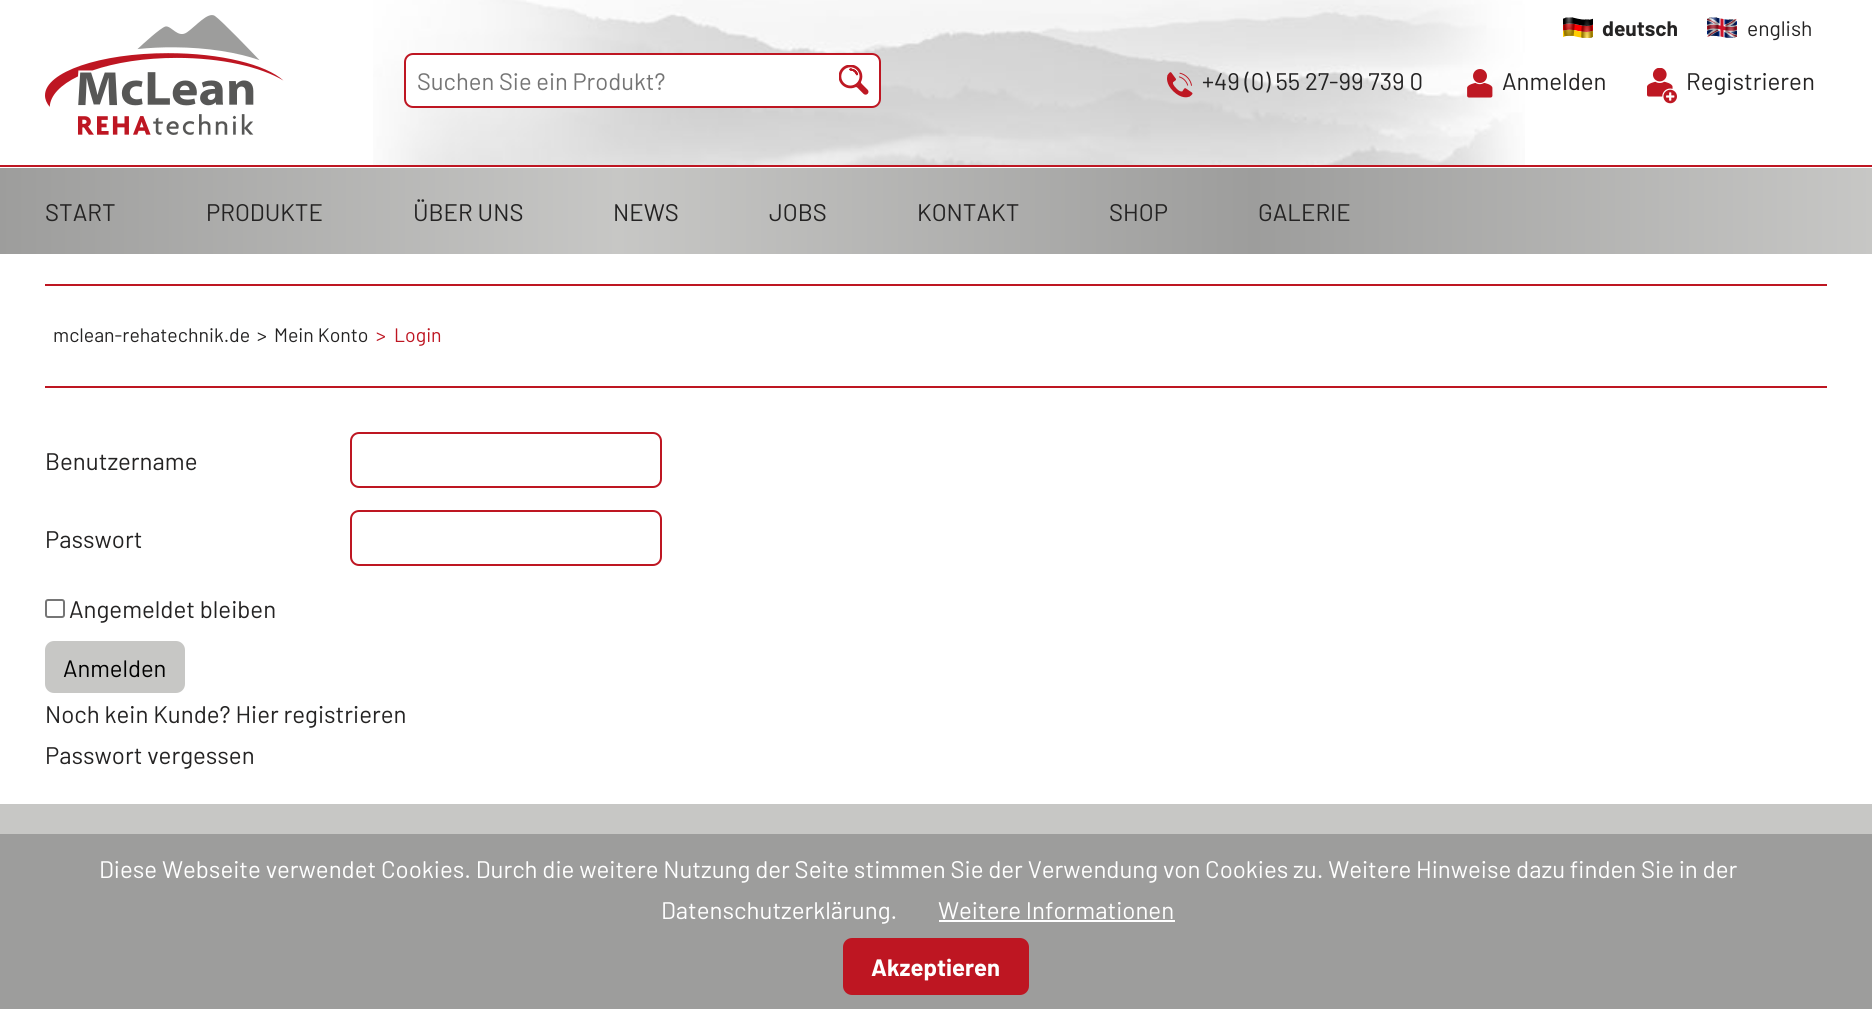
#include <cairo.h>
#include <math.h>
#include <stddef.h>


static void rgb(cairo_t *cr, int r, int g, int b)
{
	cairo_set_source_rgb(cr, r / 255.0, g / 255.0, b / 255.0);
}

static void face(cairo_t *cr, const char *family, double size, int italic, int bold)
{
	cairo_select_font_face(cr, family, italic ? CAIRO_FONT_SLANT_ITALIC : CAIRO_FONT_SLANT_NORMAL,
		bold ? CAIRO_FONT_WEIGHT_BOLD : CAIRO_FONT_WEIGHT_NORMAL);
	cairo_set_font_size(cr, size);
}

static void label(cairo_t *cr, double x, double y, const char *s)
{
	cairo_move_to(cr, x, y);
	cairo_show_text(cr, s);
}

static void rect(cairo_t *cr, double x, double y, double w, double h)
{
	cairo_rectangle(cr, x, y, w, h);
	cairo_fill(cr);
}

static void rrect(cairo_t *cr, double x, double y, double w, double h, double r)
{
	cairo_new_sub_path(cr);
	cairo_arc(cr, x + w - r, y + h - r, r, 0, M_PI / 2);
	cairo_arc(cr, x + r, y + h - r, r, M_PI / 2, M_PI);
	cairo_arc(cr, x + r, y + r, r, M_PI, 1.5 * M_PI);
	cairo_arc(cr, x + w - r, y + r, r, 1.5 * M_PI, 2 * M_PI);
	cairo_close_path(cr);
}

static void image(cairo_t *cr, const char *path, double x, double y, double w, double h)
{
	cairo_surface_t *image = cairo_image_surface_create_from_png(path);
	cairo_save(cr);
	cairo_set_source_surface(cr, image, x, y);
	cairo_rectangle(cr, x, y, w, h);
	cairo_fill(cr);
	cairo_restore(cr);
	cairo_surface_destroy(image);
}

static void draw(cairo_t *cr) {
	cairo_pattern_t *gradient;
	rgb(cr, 255, 255, 255);
	cairo_paint(cr);
	image(cr, "image0.png", 1563, 17, 30, 21);
	face(cr, "Barlow", 21, 0, 1);
	rgb(cr, 36, 35, 35);
	label(cr, 1602, 36, "deutsch");
	image(cr, "image1.png", 1707, 17, 30, 21);
	face(cr, "Barlow", 21, 0, 0);
	label(cr, 1747, 36, "english");
	image(cr, "image2.png", 373, 0, 1152, 165);
	rgb(cr, 190, 22, 34);
	rect(cr, 0, 165, 1872, 2);
	image(cr, "image3.png", 45, 15, 239, 120);
	rgb(cr, 255, 255, 255);
	rrect(cr, 405, 54, 475, 53, 8);
	cairo_fill_preserve(cr);
	rgb(cr, 190, 22, 34);
	cairo_stroke(cr);
	face(cr, "Barlow", 23.75, 0, 0);
	rgb(cr, 117, 117, 117);
	label(cr, 417, 90, "Suchen Sie ein Produkt?");
	image(cr, "image4.png", 839, 65, 30, 30);
	image(cr, "image5.png", 1167, 72, 26, 26);
	face(cr, "Barlow", 24, 0, 0);
	rgb(cr, 36, 35, 35);
	label(cr, 1202, 90, "+49 (0) 55 27-99 739 0");
	image(cr, "image6.png", 1467, 69, 26, 29);
	label(cr, 1502, 90, "Anmelden");
	image(cr, "image7.png", 1647, 68, 30, 36);
	label(cr, 1686, 90, "Registrieren");
	gradient = cairo_pattern_create_linear(0, 211, 1872, 211);
	cairo_pattern_add_color_stop_rgba(gradient, 0, 0.616, 0.616, 0.612, 1);
	cairo_pattern_add_color_stop_rgba(gradient, 0.33, 0.78, 0.78, 0.773, 1);
	cairo_pattern_add_color_stop_rgba(gradient, 0.67, 0.616, 0.616, 0.612, 1);
	cairo_pattern_add_color_stop_rgba(gradient, 1, 0.78, 0.78, 0.773, 1);
	cairo_set_source(cr, gradient);
	cairo_pattern_destroy(gradient);
	rect(cr, 0, 168, 1872, 86);
	rgb(cr, 36, 35, 35);
	label(cr, 45, 221, "START");
	label(cr, 206, 221, "PRODUKTE");
	label(cr, 413, 221, "ÜBER UNS");
	label(cr, 613, 221, "NEWS");
	label(cr, 769, 221, "JOBS");
	label(cr, 917, 221, "KONTAKT");
	label(cr, 1109, 221, "SHOP");
	label(cr, 1258, 221, "GALERIE");
	rgb(cr, 190, 22, 34);
	rect(cr, 45, 284, 1782, 2);
	rect(cr, 45, 386, 1782, 2);
	face(cr, "Barlow", 19.5, 0, 0);
	rgb(cr, 36, 35, 35);
	label(cr, 53, 342, "mclean-rehatechnik.de");
	label(cr, 257, 342, ">");
	label(cr, 274, 342, "Mein Konto");
	rgb(cr, 190, 22, 34);
	label(cr, 376, 342, ">");
	label(cr, 394, 342, "Login");
	face(cr, "Barlow", 24, 0, 0);
	rgb(cr, 36, 35, 35);
	label(cr, 45, 470, "Benutzername");
	rrect(cr, 351, 433, 310, 54, 8);
	rgb(cr, 190, 22, 34);
	cairo_stroke(cr);
	rgb(cr, 36, 35, 35);
	label(cr, 45, 548, "Passwort");
	rrect(cr, 351, 511, 310, 54, 8);
	rgb(cr, 190, 22, 34);
	cairo_stroke(cr);
	rrect(cr, 46, 600, 18, 17, 2);
	rgb(cr, 118, 118, 118);
	cairo_stroke(cr);
	rgb(cr, 36, 35, 35);
	label(cr, 69, 618, "Angemeldet bleiben");
	rgb(cr, 199, 199, 197);
	rrect(cr, 45, 641, 140, 52, 9);
	cairo_fill(cr);
	face(cr, "Barlow", 23.75, 0, 0);
	rgb(cr, 0, 0, 0);
	label(cr, 63, 677, "Anmelden");
	face(cr, "Barlow", 24, 0, 0);
	rgb(cr, 36, 35, 35);
	label(cr, 45, 723, "Noch kein Kunde? Hier registrieren");
	label(cr, 45, 764, "Passwort vergessen");
	rgb(cr, 199, 199, 197);
	rect(cr, 0, 804, 1872, 30);
	rgb(cr, 157, 157, 156);
	rect(cr, 0, 834, 1872, 175);
	rgb(cr, 255, 255, 255);
	label(cr, 99, 878, "Diese Webseite verwendet Cookies. Durch die weitere Nutzung der Seite stimmen Sie der Verwendung von Cookies zu. Weitere Hinweise dazu finden Sie in der");
	label(cr, 661, 919, "Datenschutzerklärung.");
	label(cr, 938, 919, "Weitere Informationen");
	rect(cr, 939, 920, 236, 2);
	rgb(cr, 190, 22, 34);
	rrect(cr, 843, 938, 186, 57, 9);
	cairo_fill(cr);
	face(cr, "Barlow", 23.75, 0, 1);
	rgb(cr, 255, 255, 255);
	label(cr, 871, 976, "Akzeptieren");
}

int main(void) {
	cairo_surface_t *surface = cairo_image_surface_create(CAIRO_FORMAT_RGB24, 1872, 1009);
	cairo_t *cr = cairo_create(surface);
	cairo_font_options_t *options = cairo_font_options_create();
	cairo_font_options_set_hint_metrics(options, CAIRO_HINT_METRICS_OFF);
	cairo_font_options_set_hint_style(options, CAIRO_HINT_STYLE_NONE);
	cairo_set_font_options(cr, options);
	cairo_set_miter_limit(cr, 4);
	draw(cr);
	cairo_surface_write_to_png(surface, "render.png");
	cairo_font_options_destroy(options);
	cairo_destroy(cr);
	cairo_surface_destroy(surface);
	return 0;
}
